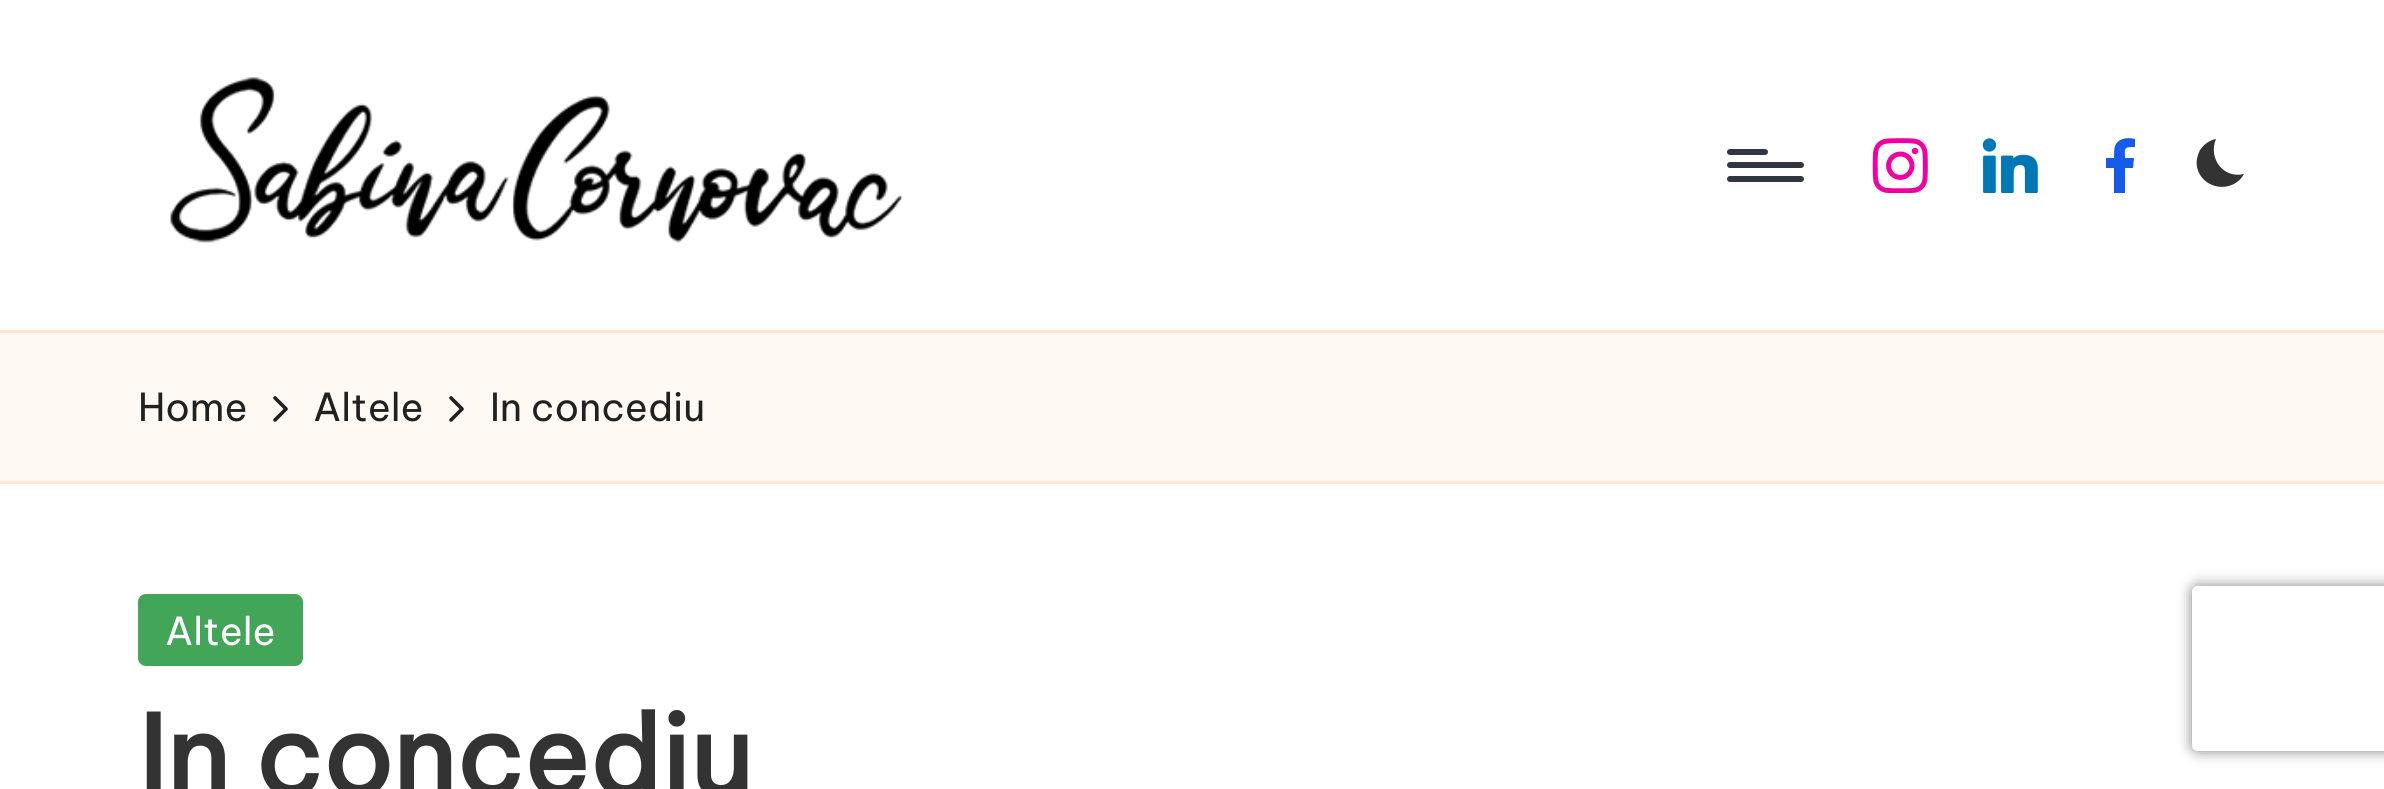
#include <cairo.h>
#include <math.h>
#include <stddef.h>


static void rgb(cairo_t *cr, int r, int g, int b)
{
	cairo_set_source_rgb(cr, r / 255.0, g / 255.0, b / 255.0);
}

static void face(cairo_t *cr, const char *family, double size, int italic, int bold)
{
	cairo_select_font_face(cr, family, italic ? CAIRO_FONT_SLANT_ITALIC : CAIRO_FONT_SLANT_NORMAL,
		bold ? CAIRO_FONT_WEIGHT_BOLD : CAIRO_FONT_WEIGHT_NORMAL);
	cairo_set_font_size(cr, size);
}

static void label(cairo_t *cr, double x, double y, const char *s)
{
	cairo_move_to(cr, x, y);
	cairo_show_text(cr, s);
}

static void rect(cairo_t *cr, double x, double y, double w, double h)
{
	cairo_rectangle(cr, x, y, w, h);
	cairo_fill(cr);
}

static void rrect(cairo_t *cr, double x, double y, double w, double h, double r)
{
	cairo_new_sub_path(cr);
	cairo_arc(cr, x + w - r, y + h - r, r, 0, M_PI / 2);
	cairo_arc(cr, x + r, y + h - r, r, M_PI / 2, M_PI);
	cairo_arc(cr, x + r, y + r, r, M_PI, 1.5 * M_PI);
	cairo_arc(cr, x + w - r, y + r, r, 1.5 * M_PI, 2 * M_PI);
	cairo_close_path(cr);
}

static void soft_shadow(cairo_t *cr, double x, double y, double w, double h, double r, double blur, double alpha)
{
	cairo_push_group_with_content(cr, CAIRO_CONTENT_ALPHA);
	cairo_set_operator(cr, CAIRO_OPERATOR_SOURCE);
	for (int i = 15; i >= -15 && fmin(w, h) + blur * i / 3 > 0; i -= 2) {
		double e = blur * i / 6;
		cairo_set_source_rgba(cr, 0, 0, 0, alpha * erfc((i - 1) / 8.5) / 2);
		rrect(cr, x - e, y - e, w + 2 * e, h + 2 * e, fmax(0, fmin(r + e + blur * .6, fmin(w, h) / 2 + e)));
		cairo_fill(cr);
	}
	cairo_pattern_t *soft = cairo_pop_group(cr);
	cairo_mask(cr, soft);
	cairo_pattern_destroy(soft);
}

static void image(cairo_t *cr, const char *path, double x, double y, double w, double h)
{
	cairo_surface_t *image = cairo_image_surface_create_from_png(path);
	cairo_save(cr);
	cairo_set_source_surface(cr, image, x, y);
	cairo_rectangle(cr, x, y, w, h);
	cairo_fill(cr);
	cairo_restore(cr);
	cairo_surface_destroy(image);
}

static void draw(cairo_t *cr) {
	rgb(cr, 255, 255, 255);
	cairo_paint(cr);
	image(cr, "image0.png", 170, 77, 732, 166);
	rgb(cr, 48, 55, 62);
	rrect(cr, 1727, 162, 77, 6, 3);
	cairo_fill(cr);
	rrect(cr, 1727, 149, 41, 6, 3);
	cairo_fill(cr);
	rrect(cr, 1727, 176, 77, 6, 3);
	cairo_fill(cr);
	image(cr, "image1.png", 1872, 138, 56, 55);
	image(cr, "image2.png", 1982, 138, 56, 55);
	rgb(cr, 23, 91, 235);
	cairo_new_path(cr);
	cairo_move_to(cr, 2125, 193);
	cairo_line_to(cr, 2125, 168);
	cairo_line_to(cr, 2133, 168);
	cairo_line_to(cr, 2134, 158);
	cairo_line_to(cr, 2125, 158);
	cairo_curve_to(cr, 2125, 148, 2123, 147, 2135, 147);
	cairo_line_to(cr, 2135, 139);
	cairo_curve_to(cr, 2128, 137, 2118, 138, 2115, 146);
	cairo_curve_to(cr, 2114, 149, 2114, 154, 2114, 158);
	cairo_line_to(cr, 2106, 158);
	cairo_line_to(cr, 2106, 168);
	cairo_line_to(cr, 2114, 168);
	cairo_line_to(cr, 2114, 193);
	cairo_close_path(cr);
	cairo_fill(cr);
	rgb(cr, 51, 51, 51);
	cairo_new_path(cr);
	cairo_move_to(cr, 2244, 174);
	cairo_curve_to(cr, 2223, 179, 2208, 158, 2216, 139);
	cairo_curve_to(cr, 2210, 140, 2204, 144, 2200, 150);
	cairo_curve_to(cr, 2197, 156, 2196, 162, 2197, 167);
	cairo_curve_to(cr, 2202, 190, 2233, 194, 2244, 174);
	cairo_close_path(cr);
	cairo_fill(cr);
	rgb(cr, 255, 249, 243);
	rect(cr, 0, 333, 2384, 148);
	rgb(cr, 255, 231, 210);
	rect(cr, 0, 330, 2384, 3);
	rect(cr, 0, 481, 2384, 3);
	face(cr, "Be Vietnam Pro", 38.5, 0, 0);
	rgb(cr, 33, 33, 33);
	label(cr, 138, 421, "Home");
	image(cr, "image3.png", 273, 396, 15, 26);
	label(cr, 313, 421, "Altele");
	image(cr, "image3.png", 449, 396, 15, 26);
	label(cr, 490, 421, "In concediu");
	rgb(cr, 66, 165, 87);
	rrect(cr, 138, 594, 165, 72, 8);
	cairo_fill(cr);
	rgb(cr, 255, 255, 255);
	label(cr, 165, 645, "Altele");
	face(cr, "Be Vietnam Pro", 110, 0, 1);
	rgb(cr, 51, 51, 51);
	label(cr, 138, 796, "In concediu");
	cairo_save(cr);
	cairo_set_fill_rule(cr, CAIRO_FILL_RULE_EVEN_ODD);
	cairo_new_path(cr);
	cairo_move_to(cr, 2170, 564);
	cairo_line_to(cr, 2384, 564);
	cairo_line_to(cr, 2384, 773);
	cairo_line_to(cr, 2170, 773);
	cairo_close_path(cr);
	cairo_move_to(cr, 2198, 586);
	cairo_line_to(cr, 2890, 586);
	cairo_curve_to(cr, 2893.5, 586, 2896, 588.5, 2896, 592);
	cairo_line_to(cr, 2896, 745);
	cairo_curve_to(cr, 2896, 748.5, 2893.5, 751, 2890, 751);
	cairo_line_to(cr, 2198, 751);
	cairo_curve_to(cr, 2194.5, 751, 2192, 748.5, 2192, 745);
	cairo_line_to(cr, 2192, 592);
	cairo_curve_to(cr, 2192, 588.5, 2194.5, 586, 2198, 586);
	cairo_close_path(cr);
	cairo_clip(cr);
	rgb(cr, 128, 128, 128);
	soft_shadow(cr, 2192, 586, 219, 165, 6, 7, 1);
	cairo_restore(cr);
}

int main(void) {
	cairo_surface_t *surface = cairo_image_surface_create(CAIRO_FORMAT_RGB24, 2384, 789);
	cairo_t *cr = cairo_create(surface);
	cairo_font_options_t *options = cairo_font_options_create();
	cairo_font_options_set_hint_metrics(options, CAIRO_HINT_METRICS_OFF);
	cairo_font_options_set_hint_style(options, CAIRO_HINT_STYLE_NONE);
	cairo_set_font_options(cr, options);
	cairo_set_miter_limit(cr, 4);
	draw(cr);
	cairo_surface_write_to_png(surface, "render.png");
	cairo_font_options_destroy(options);
	cairo_destroy(cr);
	cairo_surface_destroy(surface);
	return 0;
}
